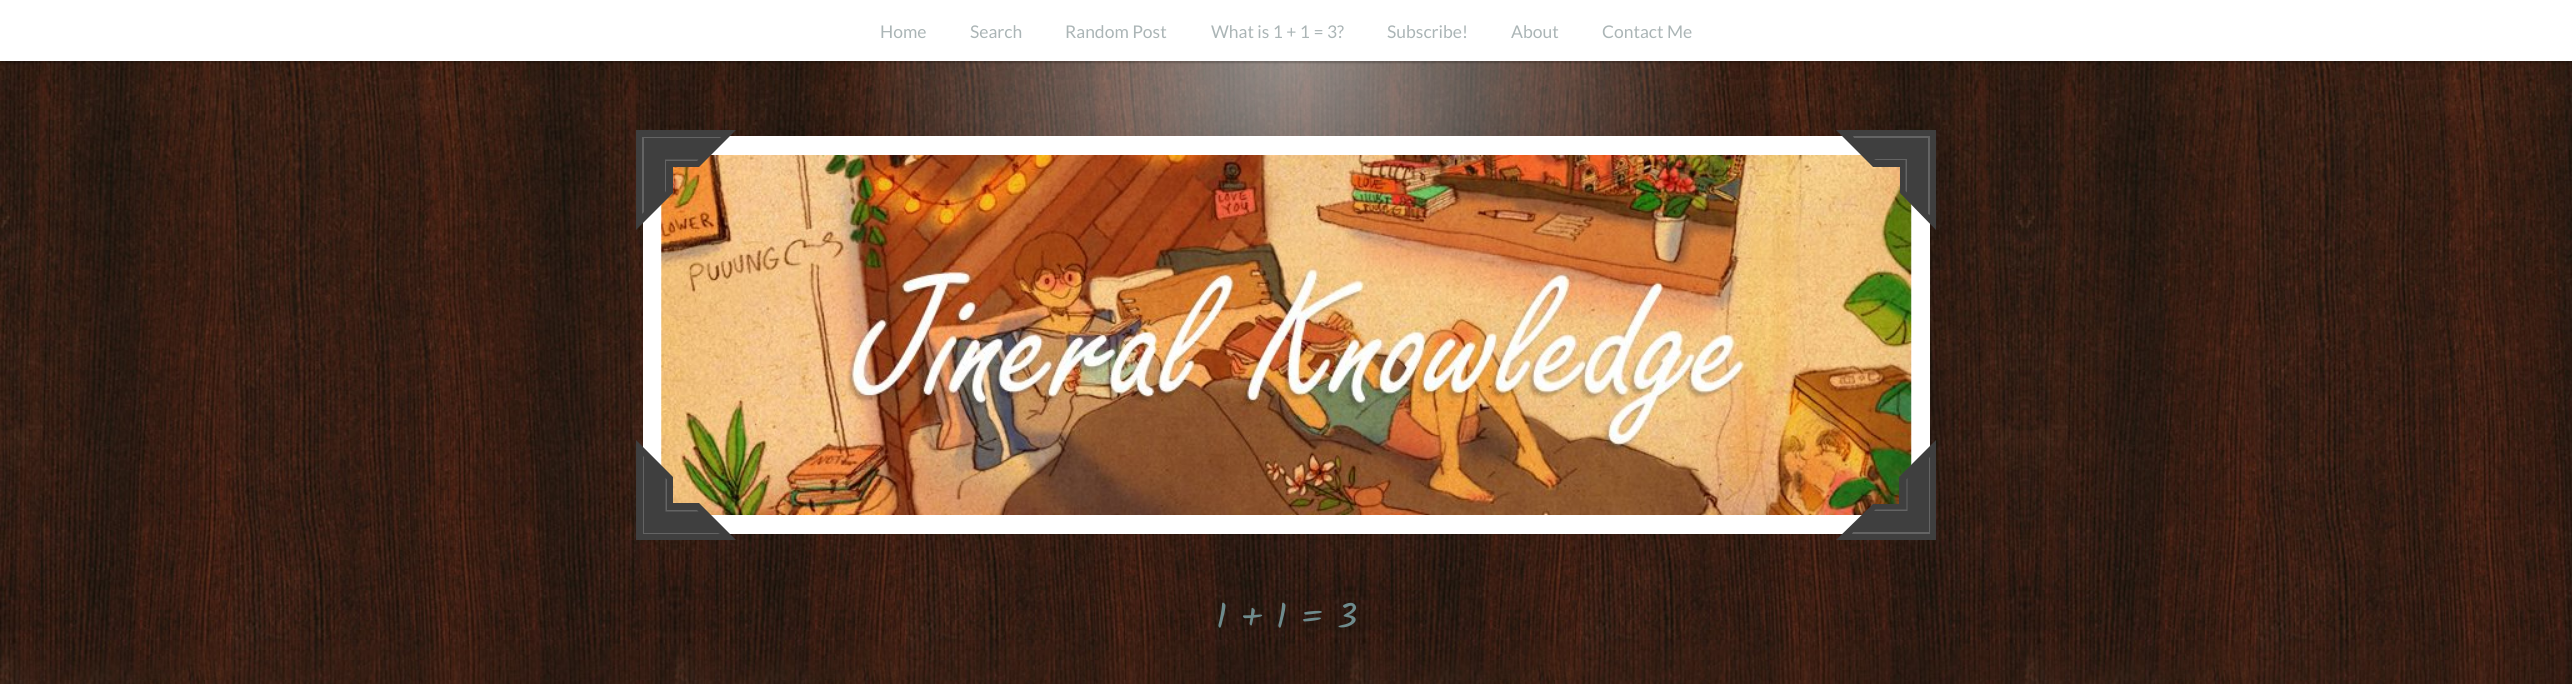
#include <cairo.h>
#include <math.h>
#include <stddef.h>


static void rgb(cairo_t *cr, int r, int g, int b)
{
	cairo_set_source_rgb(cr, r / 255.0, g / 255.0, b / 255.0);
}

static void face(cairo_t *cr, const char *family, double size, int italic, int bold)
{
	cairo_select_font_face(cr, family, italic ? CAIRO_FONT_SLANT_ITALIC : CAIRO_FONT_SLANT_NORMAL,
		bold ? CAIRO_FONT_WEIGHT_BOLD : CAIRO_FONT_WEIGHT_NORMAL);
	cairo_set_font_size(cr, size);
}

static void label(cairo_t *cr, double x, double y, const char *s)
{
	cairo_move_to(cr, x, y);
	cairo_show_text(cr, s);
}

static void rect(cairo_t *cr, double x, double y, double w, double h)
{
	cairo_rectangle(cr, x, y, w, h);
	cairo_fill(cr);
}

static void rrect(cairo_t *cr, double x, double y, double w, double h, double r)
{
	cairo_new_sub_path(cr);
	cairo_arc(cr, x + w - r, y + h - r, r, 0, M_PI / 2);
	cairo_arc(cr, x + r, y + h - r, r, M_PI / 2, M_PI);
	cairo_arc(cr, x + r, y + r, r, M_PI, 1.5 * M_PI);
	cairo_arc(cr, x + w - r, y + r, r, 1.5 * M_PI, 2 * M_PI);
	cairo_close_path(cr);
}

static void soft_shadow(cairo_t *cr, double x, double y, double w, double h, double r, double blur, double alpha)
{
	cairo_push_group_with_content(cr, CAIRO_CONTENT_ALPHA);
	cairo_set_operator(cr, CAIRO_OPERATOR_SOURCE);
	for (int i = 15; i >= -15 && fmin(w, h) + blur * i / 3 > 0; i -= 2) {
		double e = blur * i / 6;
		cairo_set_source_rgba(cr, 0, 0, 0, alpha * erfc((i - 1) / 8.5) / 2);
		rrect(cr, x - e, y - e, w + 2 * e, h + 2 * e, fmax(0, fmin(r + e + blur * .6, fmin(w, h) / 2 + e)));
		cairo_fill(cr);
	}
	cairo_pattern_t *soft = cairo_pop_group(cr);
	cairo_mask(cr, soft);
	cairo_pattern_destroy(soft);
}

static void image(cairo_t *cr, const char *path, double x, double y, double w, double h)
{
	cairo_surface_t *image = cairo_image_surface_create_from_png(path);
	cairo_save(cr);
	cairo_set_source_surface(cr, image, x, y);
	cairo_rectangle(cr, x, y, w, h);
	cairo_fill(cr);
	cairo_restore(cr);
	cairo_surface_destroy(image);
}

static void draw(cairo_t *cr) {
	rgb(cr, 255, 255, 255);
	cairo_paint(cr);
	image(cr, "image0.png", 0, 61, 2572, 623);
	rgb(cr, 0, 0, 0);
	soft_shadow(cr, 1, 1, 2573, 62, 0, 0.5, 0.2);
	rgb(cr, 255, 255, 255);
	rect(cr, 0, 0, 2572, 61);
	face(cr, "Lato", 17.5, 0, 0);
	rgb(cr, 171, 181, 182);
	label(cr, 880, 38, "Home");
	label(cr, 970, 38, "Search");
	label(cr, 1065, 38, "Random Post");
	label(cr, 1211, 38, "What is 1 + 1 = 3?");
	label(cr, 1387, 38, "Subscribe!");
	label(cr, 1511, 38, "About");
	label(cr, 1602, 38, "Contact Me");
	rgb(cr, 0, 0, 0);
	soft_shadow(cr, 644, 138, 1287, 397, 0, 1, 0.1);
	rgb(cr, 255, 255, 255);
	rect(cr, 643, 136, 1287, 398);
	image(cr, "image1.png", 661, 155, 1251, 360);
	rgb(cr, 63, 63, 63);
	cairo_new_path(cr);
	cairo_move_to(cr, 673, 167);
	cairo_line_to(cr, 699, 167);
	cairo_line_to(cr, 736, 130);
	cairo_line_to(cr, 636, 130);
	cairo_line_to(cr, 636, 230);
	cairo_line_to(cr, 673, 193);
	cairo_close_path(cr);
	cairo_fill(cr);
	rgb(cr, 100, 100, 100);
	cairo_new_path(cr);
	cairo_move_to(cr, 683, 137);
	cairo_line_to(cr, 642, 137);
	cairo_line_to(cr, 642, 214);
	cairo_line_to(cr, 644, 212);
	cairo_line_to(cr, 644, 138);
	cairo_line_to(cr, 720, 138);
	cairo_line_to(cr, 721, 137);
	cairo_close_path(cr);
	cairo_fill(cr);
	cairo_new_path(cr);
	cairo_move_to(cr, 666, 159.5);
	cairo_line_to(cr, 665, 159.5);
	cairo_line_to(cr, 665, 192.5);
	cairo_line_to(cr, 666, 191);
	cairo_line_to(cr, 666, 161);
	cairo_line_to(cr, 697, 161);
	cairo_line_to(cr, 698.5, 159.5);
	cairo_close_path(cr);
	cairo_fill(cr);
	rgb(cr, 63, 63, 63);
	cairo_new_path(cr);
	cairo_move_to(cr, 1900, 167);
	cairo_line_to(cr, 1873, 167);
	cairo_line_to(cr, 1836, 130);
	cairo_line_to(cr, 1936, 130);
	cairo_line_to(cr, 1936, 230);
	cairo_line_to(cr, 1900, 193);
	cairo_close_path(cr);
	cairo_fill(cr);
	rgb(cr, 100, 100, 100);
	cairo_new_path(cr);
	cairo_move_to(cr, 1930, 177);
	cairo_line_to(cr, 1930, 136);
	cairo_line_to(cr, 1853, 136);
	cairo_line_to(cr, 1854, 138);
	cairo_line_to(cr, 1928, 138);
	cairo_line_to(cr, 1928, 214);
	cairo_line_to(cr, 1930, 215);
	cairo_close_path(cr);
	cairo_fill(cr);
	cairo_new_path(cr);
	cairo_move_to(cr, 1907, 160);
	cairo_line_to(cr, 1907, 159);
	cairo_line_to(cr, 1874, 159);
	cairo_line_to(cr, 1875.5, 160);
	cairo_line_to(cr, 1905.5, 160);
	cairo_line_to(cr, 1905.5, 191);
	cairo_line_to(cr, 1907, 192.5);
	cairo_close_path(cr);
	cairo_fill(cr);
	rgb(cr, 63, 63, 63);
	cairo_new_path(cr);
	cairo_move_to(cr, 673, 503);
	cairo_line_to(cr, 699, 503);
	cairo_line_to(cr, 736, 540);
	cairo_line_to(cr, 636, 540);
	cairo_line_to(cr, 636, 440);
	cairo_line_to(cr, 673, 477);
	cairo_close_path(cr);
	cairo_fill(cr);
	rgb(cr, 100, 100, 100);
	cairo_new_path(cr);
	cairo_move_to(cr, 643, 493);
	cairo_line_to(cr, 643, 534);
	cairo_line_to(cr, 720, 534);
	cairo_line_to(cr, 718, 533);
	cairo_line_to(cr, 644, 533);
	cairo_line_to(cr, 644, 457);
	cairo_line_to(cr, 643, 456);
	cairo_close_path(cr);
	cairo_fill(cr);
	cairo_new_path(cr);
	cairo_move_to(cr, 665.5, 510);
	cairo_line_to(cr, 665.5, 511.5);
	cairo_line_to(cr, 698.5, 511.5);
	cairo_line_to(cr, 697, 510);
	cairo_line_to(cr, 667, 510);
	cairo_line_to(cr, 667, 479.5);
	cairo_line_to(cr, 665.5, 478);
	cairo_close_path(cr);
	cairo_fill(cr);
	rgb(cr, 63, 63, 63);
	cairo_new_path(cr);
	cairo_move_to(cr, 1899, 504);
	cairo_line_to(cr, 1873, 504);
	cairo_line_to(cr, 1836, 540);
	cairo_line_to(cr, 1936, 540);
	cairo_line_to(cr, 1936, 440);
	cairo_line_to(cr, 1899, 477);
	cairo_close_path(cr);
	cairo_fill(cr);
	rgb(cr, 100, 100, 100);
	cairo_new_path(cr);
	cairo_move_to(cr, 1889, 534);
	cairo_line_to(cr, 1930, 534);
	cairo_line_to(cr, 1930, 457);
	cairo_line_to(cr, 1929, 458);
	cairo_line_to(cr, 1929, 532);
	cairo_line_to(cr, 1853, 532);
	cairo_line_to(cr, 1852, 534);
	cairo_close_path(cr);
	cairo_fill(cr);
	cairo_new_path(cr);
	cairo_move_to(cr, 1906.5, 511);
	cairo_line_to(cr, 1907.5, 511);
	cairo_line_to(cr, 1907.5, 478);
	cairo_line_to(cr, 1906.5, 479.5);
	cairo_line_to(cr, 1906.5, 509.5);
	cairo_line_to(cr, 1875.5, 509.5);
	cairo_line_to(cr, 1874, 511);
	cairo_close_path(cr);
	cairo_fill(cr);
	face(cr, "Kalam", 35, 0, 0);
	rgb(cr, 110, 139, 141);
	label(cr, 1216, 628, "1 + 1 = 3");
}

int main(void) {
	cairo_surface_t *surface = cairo_image_surface_create(CAIRO_FORMAT_RGB24, 2572, 684);
	cairo_t *cr = cairo_create(surface);
	cairo_font_options_t *options = cairo_font_options_create();
	cairo_font_options_set_hint_metrics(options, CAIRO_HINT_METRICS_OFF);
	cairo_font_options_set_hint_style(options, CAIRO_HINT_STYLE_NONE);
	cairo_set_font_options(cr, options);
	cairo_set_miter_limit(cr, 4);
	draw(cr);
	cairo_surface_write_to_png(surface, "render.png");
	cairo_font_options_destroy(options);
	cairo_destroy(cr);
	cairo_surface_destroy(surface);
	return 0;
}
